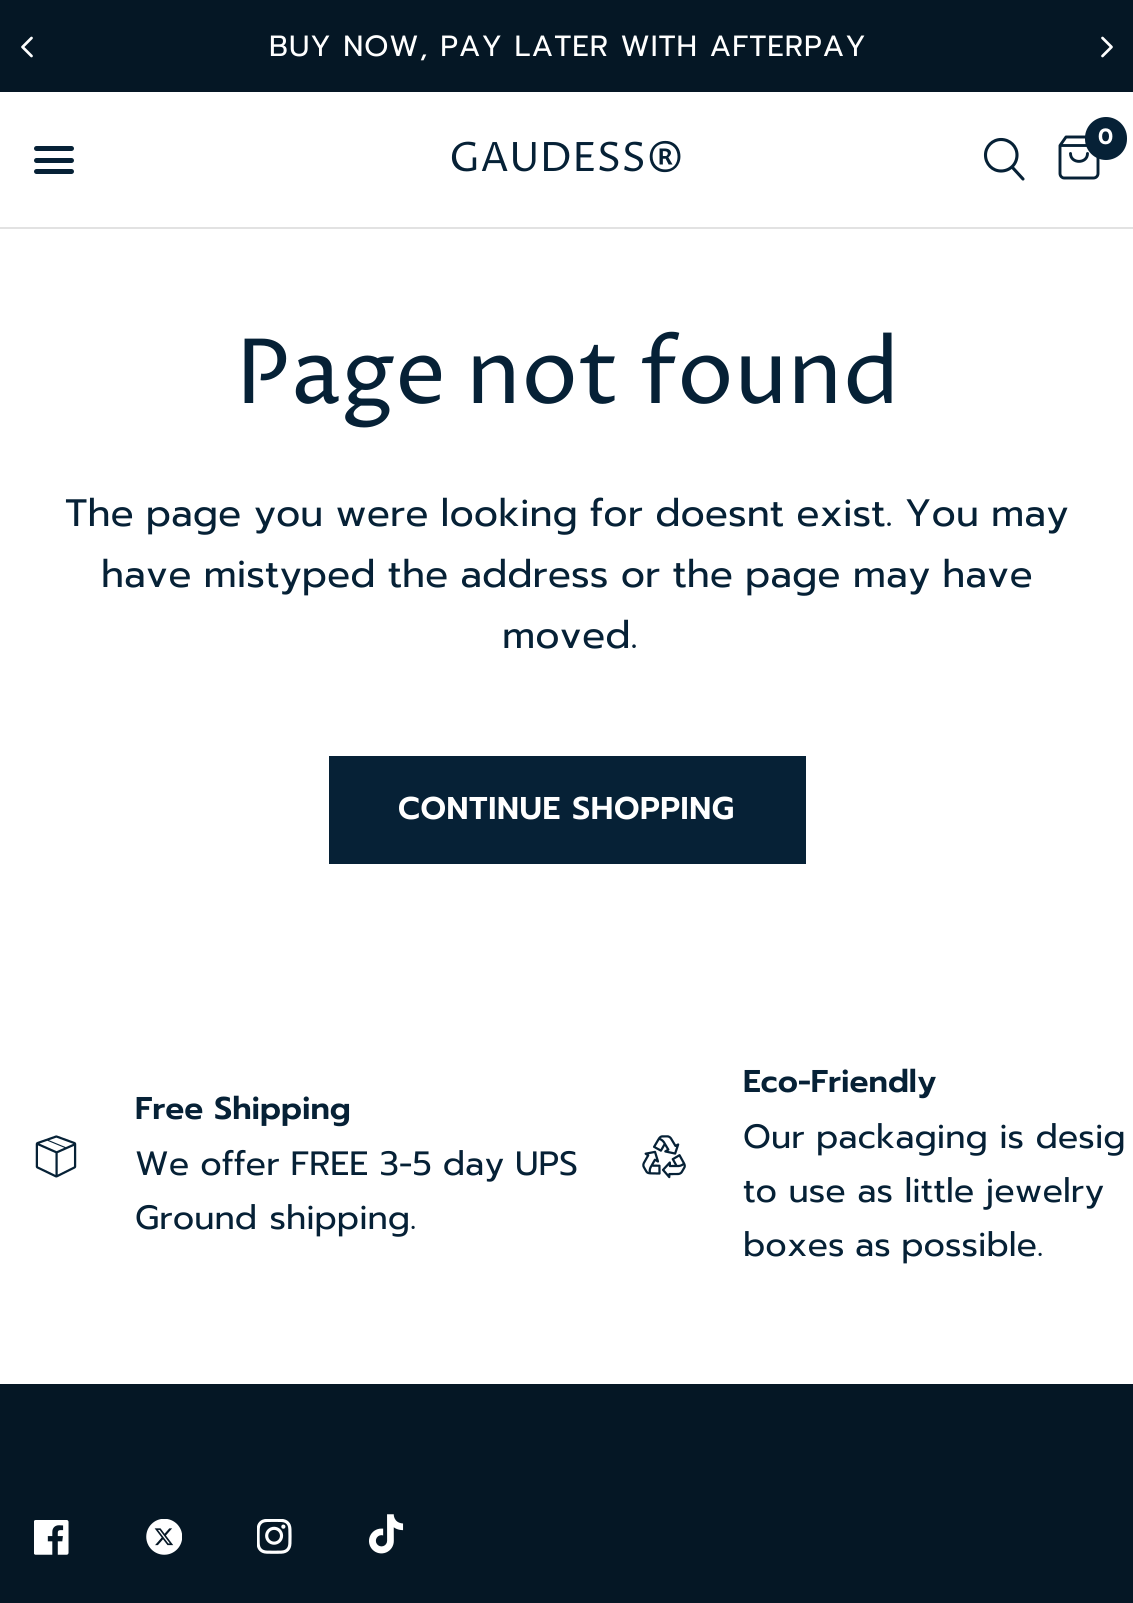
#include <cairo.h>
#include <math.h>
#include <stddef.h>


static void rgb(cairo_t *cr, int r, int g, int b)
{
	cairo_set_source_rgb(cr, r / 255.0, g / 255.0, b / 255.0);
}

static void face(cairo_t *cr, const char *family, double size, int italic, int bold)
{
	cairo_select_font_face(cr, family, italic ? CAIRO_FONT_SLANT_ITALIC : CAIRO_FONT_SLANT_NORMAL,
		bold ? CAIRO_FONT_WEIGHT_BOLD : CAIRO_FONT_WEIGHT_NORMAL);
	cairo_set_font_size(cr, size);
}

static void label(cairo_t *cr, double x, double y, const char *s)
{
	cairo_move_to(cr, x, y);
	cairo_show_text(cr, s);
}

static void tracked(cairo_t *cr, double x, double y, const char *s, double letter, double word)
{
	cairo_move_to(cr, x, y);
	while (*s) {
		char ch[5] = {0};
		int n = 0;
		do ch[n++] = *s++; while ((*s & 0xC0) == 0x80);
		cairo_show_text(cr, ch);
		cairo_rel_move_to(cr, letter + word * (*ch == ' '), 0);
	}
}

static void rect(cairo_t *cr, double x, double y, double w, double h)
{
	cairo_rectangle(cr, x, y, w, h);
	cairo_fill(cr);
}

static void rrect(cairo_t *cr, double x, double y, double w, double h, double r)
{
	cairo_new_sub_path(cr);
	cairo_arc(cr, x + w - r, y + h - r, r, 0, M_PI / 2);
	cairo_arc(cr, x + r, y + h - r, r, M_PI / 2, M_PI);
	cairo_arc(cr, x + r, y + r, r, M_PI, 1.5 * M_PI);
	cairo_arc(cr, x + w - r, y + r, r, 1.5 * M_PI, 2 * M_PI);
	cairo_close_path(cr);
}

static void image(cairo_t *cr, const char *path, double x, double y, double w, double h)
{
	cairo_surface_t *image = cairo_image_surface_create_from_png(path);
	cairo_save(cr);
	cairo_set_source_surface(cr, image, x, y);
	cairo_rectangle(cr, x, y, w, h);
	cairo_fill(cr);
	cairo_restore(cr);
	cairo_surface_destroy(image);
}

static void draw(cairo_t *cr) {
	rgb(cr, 255, 255, 255);
	cairo_paint(cr);
	rgb(cr, 5, 23, 37);
	rect(cr, 0, 0, 1133, 92);
	cairo_new_path(cr);
	cairo_move_to(cr, 31.5, 38);
	cairo_line_to(cr, 22.5, 47);
	cairo_line_to(cr, 31.5, 56);
	rgb(cr, 255, 255, 255);
	cairo_set_line_width(cr, 2.7);
	cairo_set_line_cap(cr, CAIRO_LINE_CAP_ROUND);
	cairo_set_line_join(cr, CAIRO_LINE_JOIN_ROUND);
	cairo_stroke(cr);
	face(cr, "Prompt", 29.25, 0, 0);
	tracked(cr, 269, 56, "BUY NOW, PAY LATER WITH AFTERPAY", 0.9, 0);
	cairo_new_path(cr);
	cairo_move_to(cr, 1102.5, 38);
	cairo_line_to(cr, 1111.5, 47);
	cairo_line_to(cr, 1102.5, 56);
	cairo_stroke(cr);
	rgb(cr, 226, 226, 226);
	rect(cr, 0, 227, 1133, 2);
	cairo_new_path(cr);
	cairo_move_to(cr, 1012.5, 167.5);
	cairo_line_to(cr, 1023, 179);
	cairo_move_to(cr, 1017, 155);
	cairo_curve_to(cr, 1017, 164, 1010, 171, 1001, 171);
	cairo_curve_to(cr, 992.5, 171, 985.5, 164, 985.5, 155);
	cairo_curve_to(cr, 985.5, 146.5, 992.5, 139.5, 1001, 139.5);
	cairo_curve_to(cr, 1010, 139.5, 1017, 146.5, 1017, 155);
	cairo_close_path(cr);
	rgb(cr, 6, 33, 54);
	cairo_set_line_width(cr, 3.1);
	cairo_stroke(cr);
	cairo_new_path(cr);
	cairo_move_to(cr, 1060, 145.5);
	cairo_line_to(cr, 1066, 137);
	cairo_line_to(cr, 1091.5, 137);
	cairo_line_to(cr, 1098, 145.5);
	cairo_move_to(cr, 1060, 145.5);
	cairo_line_to(cr, 1060, 173.5);
	cairo_curve_to(cr, 1060, 176, 1062, 178, 1064, 178);
	cairo_line_to(cr, 1093.5, 178);
	cairo_curve_to(cr, 1096, 178, 1098, 176, 1098, 173.5);
	cairo_line_to(cr, 1098, 145.5);
	cairo_move_to(cr, 1060, 145.5);
	cairo_line_to(cr, 1098, 145.5);
	cairo_move_to(cr, 1087.5, 153.5);
	cairo_curve_to(cr, 1087.5, 164, 1070.5, 164, 1070.5, 153.5);
	cairo_set_line_width(cr, 2.9);
	cairo_stroke(cr);
	rrect(cr, 1085, 117, 42, 43, 21);
	cairo_fill(cr);
	face(cr, "Prompt SemiBold", 22, 0, 0);
	rgb(cr, 255, 255, 255);
	label(cr, 1098, 144, "0");
	rgb(cr, 6, 33, 54);
	rrect(cr, 34, 146, 40, 5, 2.5);
	cairo_fill(cr);
	rrect(cr, 34, 158, 40, 5, 2.5);
	cairo_fill(cr);
	rrect(cr, 34, 169, 40, 5, 2.5);
	cairo_fill(cr);
	face(cr, "Proza Libre", 40.5, 0, 0);
	label(cr, 449, 171, "GAUDESS®");
	face(cr, "Proza Libre", 90, 0, 0);
	label(cr, 235, 403, "Page not found");
	face(cr, "Prompt", 38.25, 0, 0);
	tracked(cr, 65, 526, "The page you were looking for doesnt exist. You may", 0, -2);
	tracked(cr, 101, 587, "have mistyped the address or the page may have", 0, -2);
	label(cr, 502, 648, "moved.");
	rect(cr, 329, 756, 477, 108);
	face(cr, "Prompt SemiBold", 31.5, 0, 0);
	rgb(cr, 255, 255, 255);
	tracked(cr, 398, 819, "CONTINUE SHOPPING", 0.6, 0);
	image(cr, "image0.png", 35, 1135, 42, 43);
	rgb(cr, 6, 33, 54);
	label(cr, 135, 1119, "Free Shipping");
	face(cr, "Prompt", 33.75, 0, 0);
	tracked(cr, 135, 1175, "We offer FREE 3-5 day UPS", 0, -1.5);
	label(cr, 135, 1229, "Ground shipping.");
	image(cr, "image1.png", 642, 1135, 44, 44);
	face(cr, "Prompt SemiBold", 31.5, 0, 0);
	label(cr, 743, 1092, "Eco-Friendly");
	face(cr, "Prompt", 33.75, 0, 0);
	tracked(cr, 743, 1148, "Our packaging is desig", 0, -1);
	tracked(cr, 743, 1202, "to use as little jewelry", 0, -1);
	tracked(cr, 743, 1256, "boxes as possible.", 0, -2);
	rgb(cr, 5, 23, 37);
	rect(cr, 0, 1384, 1133, 219);
	image(cr, "image2.png", 34, 1520, 35, 35);
	image(cr, "image3.png", 146, 1519, 36, 36);
	image(cr, "image4.png", 257, 1519, 35, 35);
	image(cr, "image5.png", 369, 1514, 35, 40);
}

int main(void) {
	cairo_surface_t *surface = cairo_image_surface_create(CAIRO_FORMAT_RGB24, 1133, 1603);
	cairo_t *cr = cairo_create(surface);
	cairo_font_options_t *options = cairo_font_options_create();
	cairo_font_options_set_hint_metrics(options, CAIRO_HINT_METRICS_OFF);
	cairo_font_options_set_hint_style(options, CAIRO_HINT_STYLE_NONE);
	cairo_set_font_options(cr, options);
	cairo_set_miter_limit(cr, 4);
	draw(cr);
	cairo_surface_write_to_png(surface, "render.png");
	cairo_font_options_destroy(options);
	cairo_destroy(cr);
	cairo_surface_destroy(surface);
	return 0;
}
